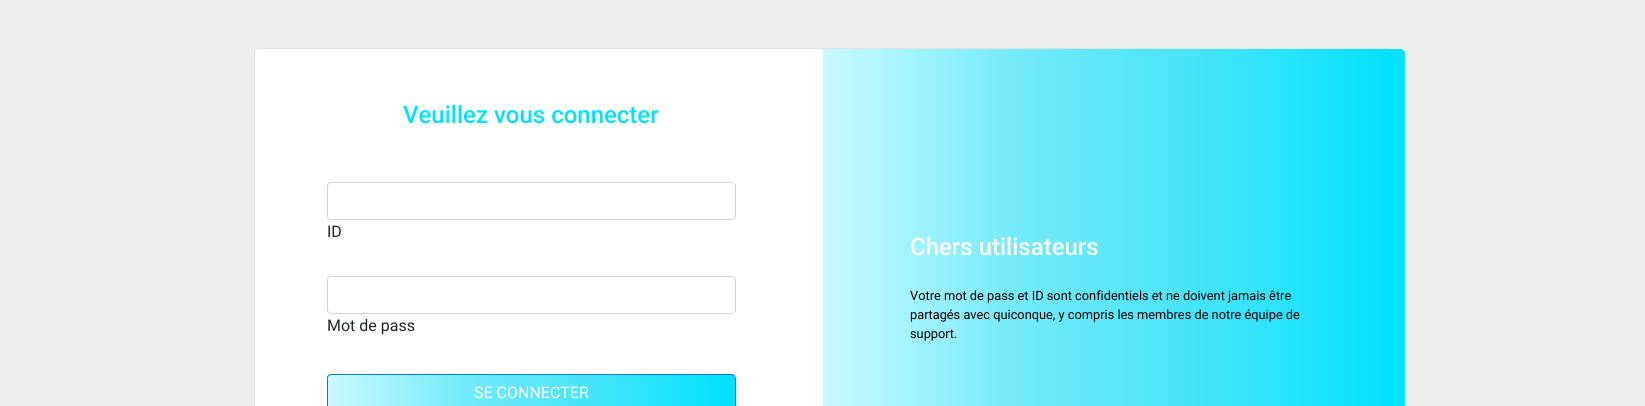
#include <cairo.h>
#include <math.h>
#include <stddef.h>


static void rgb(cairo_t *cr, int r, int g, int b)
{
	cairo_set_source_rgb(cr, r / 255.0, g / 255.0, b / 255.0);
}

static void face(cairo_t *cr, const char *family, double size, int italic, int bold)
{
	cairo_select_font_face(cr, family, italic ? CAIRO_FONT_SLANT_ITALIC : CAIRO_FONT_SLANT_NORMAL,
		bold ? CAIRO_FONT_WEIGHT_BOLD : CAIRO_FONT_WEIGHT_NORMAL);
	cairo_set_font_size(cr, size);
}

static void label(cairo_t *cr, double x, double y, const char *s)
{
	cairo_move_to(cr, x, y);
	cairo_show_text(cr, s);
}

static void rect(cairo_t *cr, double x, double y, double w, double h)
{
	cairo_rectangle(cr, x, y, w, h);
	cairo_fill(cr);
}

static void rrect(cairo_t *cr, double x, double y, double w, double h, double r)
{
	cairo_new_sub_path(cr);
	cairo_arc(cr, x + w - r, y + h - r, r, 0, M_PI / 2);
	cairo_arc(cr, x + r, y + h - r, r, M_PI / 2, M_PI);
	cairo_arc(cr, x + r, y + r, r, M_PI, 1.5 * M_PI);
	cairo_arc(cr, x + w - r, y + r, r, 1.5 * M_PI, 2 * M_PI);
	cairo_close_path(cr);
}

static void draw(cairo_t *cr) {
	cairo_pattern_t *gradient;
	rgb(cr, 238, 238, 238);
	cairo_paint(cr);
	rgb(cr, 255, 255, 255);
	rrect(cr, 254, 48, 1137, 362, 4);
	cairo_fill(cr);
	rrect(cr, 254.5, 48.5, 1136, 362, 3.5);
	cairo_set_source_rgba(cr, 0, 0, 0, 0.12);
	cairo_set_line_width(cr, 1);
	cairo_stroke(cr);
	face(cr, "Roboto Medium", 24, 0, 0);
	rgb(cr, 0, 225, 255);
	label(cr, 403, 123, "Veuillez vous connecter");
	rrect(cr, 327.5, 182.5, 408, 37, 3.5);
	rgb(cr, 206, 212, 218);
	cairo_stroke(cr);
	face(cr, "Roboto", 16, 0, 0);
	rgb(cr, 33, 37, 41);
	label(cr, 327, 237, "ID");
	rrect(cr, 327.5, 276.5, 408, 37, 3.5);
	rgb(cr, 206, 212, 218);
	cairo_stroke(cr);
	rgb(cr, 33, 37, 41);
	label(cr, 327, 331, "Mot de pass");
	cairo_save(cr);
	cairo_new_path(cr);
	cairo_move_to(cr, 331, 374);
	cairo_line_to(cr, 731, 374);
	cairo_curve_to(cr, 734, 374, 736, 376, 736, 379);
	cairo_line_to(cr, 736, 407);
	cairo_curve_to(cr, 736, 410, 734, 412, 731, 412);
	cairo_line_to(cr, 331, 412);
	cairo_curve_to(cr, 329, 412, 327, 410, 327, 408);
	cairo_line_to(cr, 327, 378);
	cairo_curve_to(cr, 327, 376, 329, 374, 331, 374);
	cairo_close_path(cr);
	cairo_clip(cr);
	gradient = cairo_pattern_create_linear(328, 393, 735, 393);
	cairo_pattern_add_color_stop_rgba(gradient, 0, 0.788, 0.984, 1, 1);
	cairo_pattern_add_color_stop_rgba(gradient, 0.33, 0.459, 0.918, 0.98, 1);
	cairo_pattern_add_color_stop_rgba(gradient, 0.67, 0.255, 0.894, 0.98, 1);
	cairo_pattern_add_color_stop_rgba(gradient, 1, 0, 0.882, 1, 1);
	cairo_set_source(cr, gradient);
	cairo_pattern_destroy(gradient);
	rect(cr, 328, 374, 407, 32);
	cairo_restore(cr);
	cairo_new_path(cr);
	cairo_move_to(cr, 331, 374.5);
	cairo_line_to(cr, 731, 374.5);
	cairo_curve_to(cr, 733.5, 374.5, 735.5, 376.5, 735.5, 379);
	cairo_line_to(cr, 735.5, 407);
	cairo_curve_to(cr, 735.5, 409.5, 733.5, 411.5, 731, 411.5);
	cairo_line_to(cr, 331, 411.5);
	cairo_curve_to(cr, 329, 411.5, 327.5, 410, 327.5, 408);
	cairo_line_to(cr, 327.5, 378);
	cairo_curve_to(cr, 327.5, 376, 329, 374.5, 331, 374.5);
	cairo_close_path(cr);
	rgb(cr, 0, 123, 255);
	cairo_stroke(cr);
	rgb(cr, 255, 255, 255);
	label(cr, 474, 398, "SE CONNECTER");
	gradient = cairo_pattern_create_linear(823, 289, 1405, 289);
	cairo_pattern_add_color_stop_rgba(gradient, 0, 0.788, 0.984, 1, 1);
	cairo_pattern_add_color_stop_rgba(gradient, 0.33, 0.459, 0.918, 0.98, 1);
	cairo_pattern_add_color_stop_rgba(gradient, 0.67, 0.255, 0.894, 0.98, 1);
	cairo_pattern_add_color_stop_rgba(gradient, 1, 0, 0.882, 1, 1);
	cairo_set_source(cr, gradient);
	cairo_pattern_destroy(gradient);
	cairo_new_path(cr);
	cairo_move_to(cr, 823, 49);
	cairo_line_to(cr, 1400, 49);
	cairo_curve_to(cr, 1403, 49, 1405, 51, 1405, 54);
	cairo_line_to(cr, 1405, 406);
	cairo_curve_to(cr, 1405, 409, 1403, 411, 1400, 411);
	cairo_line_to(cr, 823, 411);
	cairo_close_path(cr);
	cairo_fill(cr);
	face(cr, "Roboto Medium", 24, 0, 0);
	rgb(cr, 255, 255, 255);
	label(cr, 910, 255, "Chers utilisateurs");
	face(cr, "Roboto", 12.8, 0, 0);
	rgb(cr, 0, 0, 0);
	label(cr, 910, 300, "Votre mot de pass et ID sont confidentiels et ne doivent jamais être");
	label(cr, 910, 319, "partagés avec quiconque, y compris les membres de notre équipe de");
	label(cr, 910, 338, "support.");
}

int main(void) {
	cairo_surface_t *surface = cairo_image_surface_create(CAIRO_FORMAT_RGB24, 1645, 406);
	cairo_t *cr = cairo_create(surface);
	cairo_font_options_t *options = cairo_font_options_create();
	cairo_font_options_set_hint_metrics(options, CAIRO_HINT_METRICS_OFF);
	cairo_font_options_set_hint_style(options, CAIRO_HINT_STYLE_NONE);
	cairo_set_font_options(cr, options);
	cairo_set_miter_limit(cr, 4);
	draw(cr);
	cairo_surface_write_to_png(surface, "render.png");
	cairo_font_options_destroy(options);
	cairo_destroy(cr);
	cairo_surface_destroy(surface);
	return 0;
}
